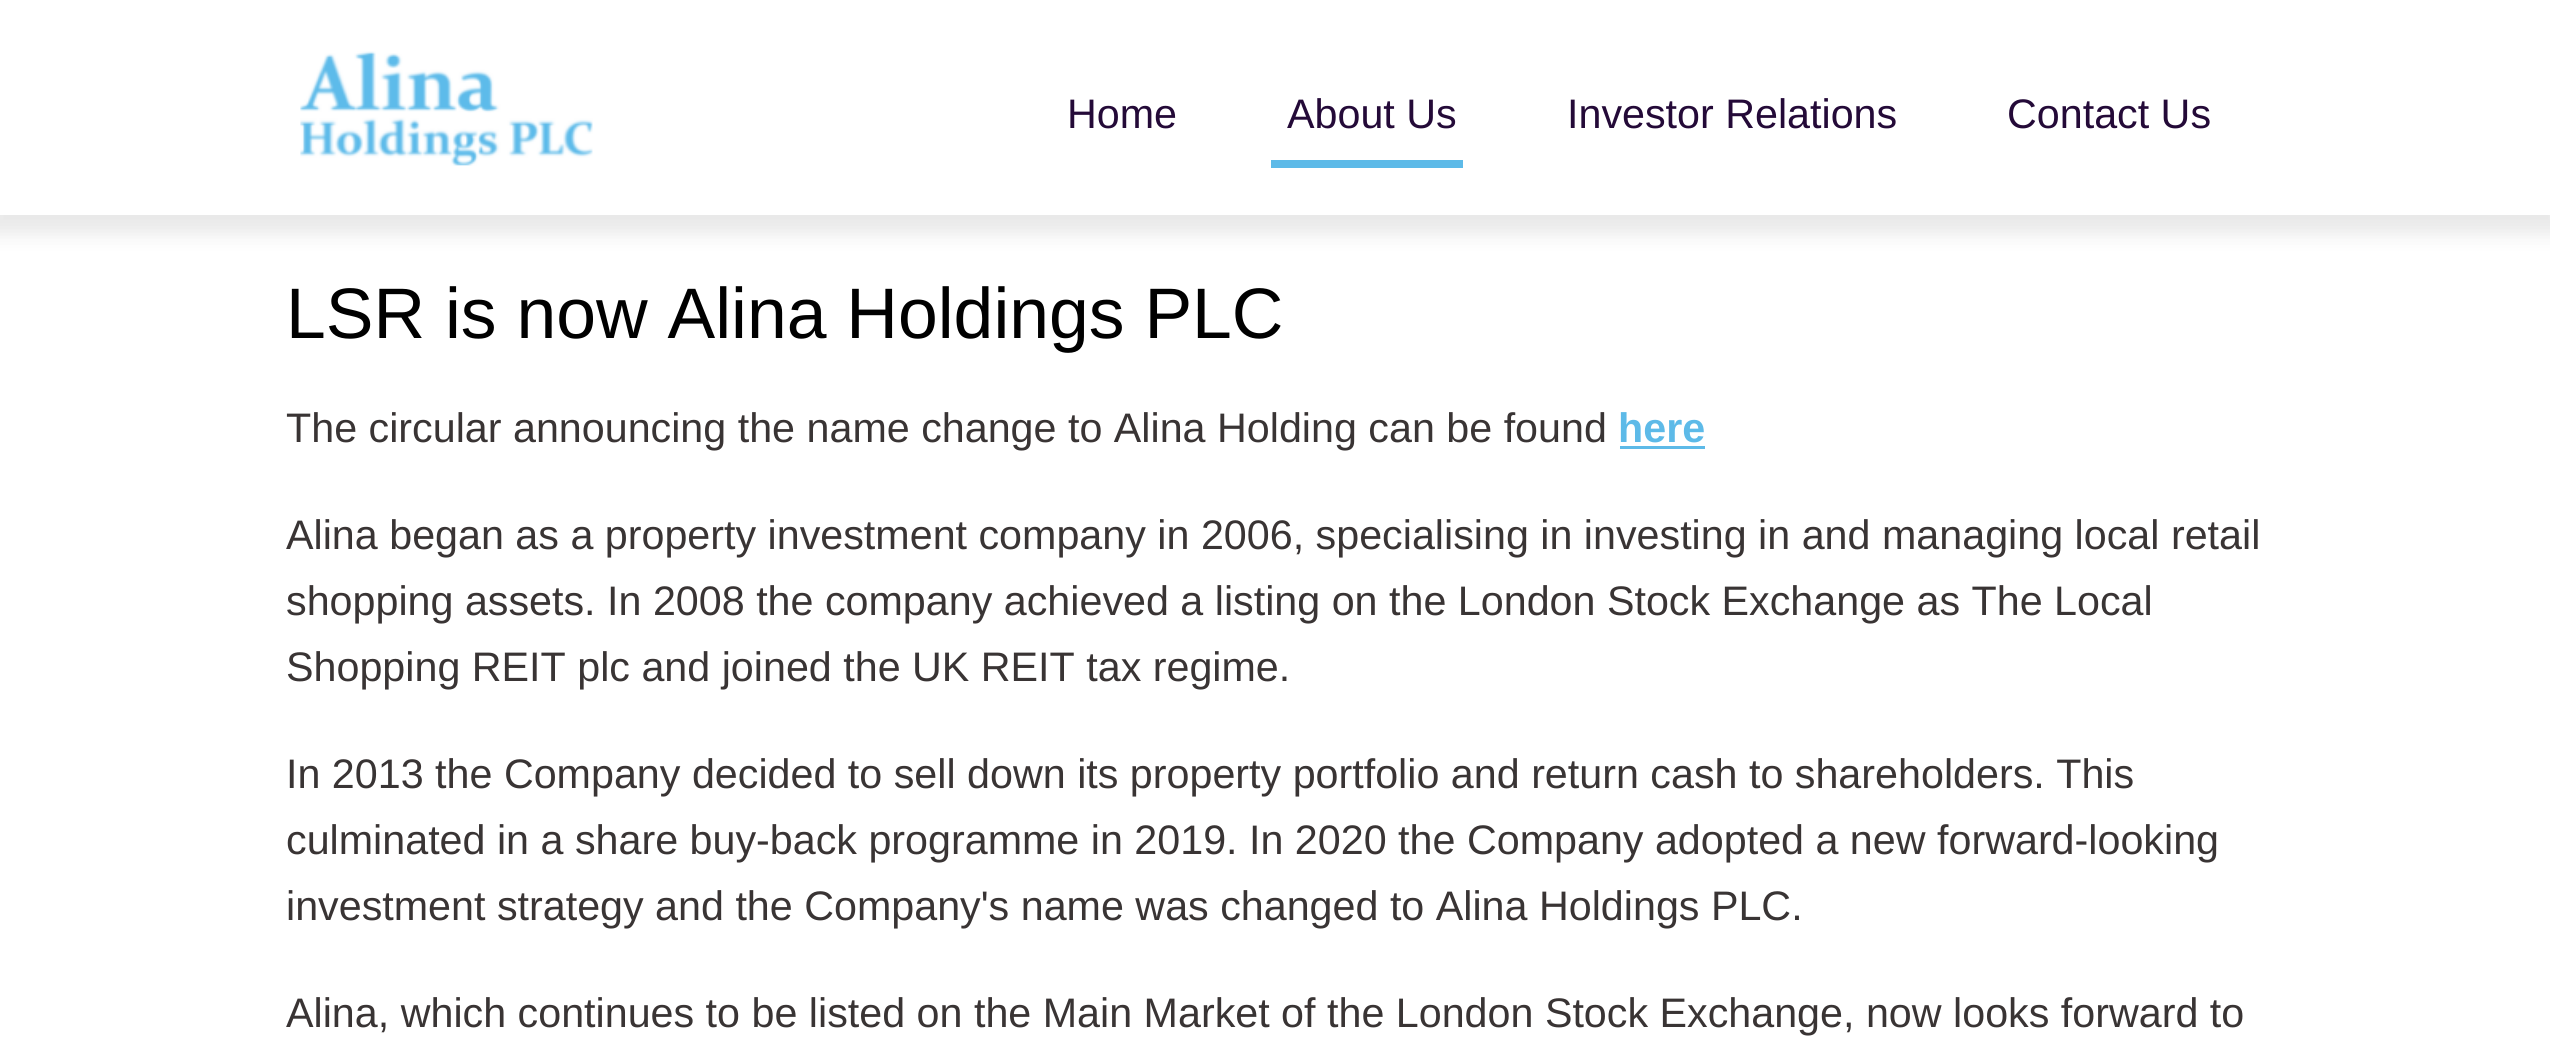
#include <cairo.h>
#include <math.h>
#include <stddef.h>


static void rgb(cairo_t *cr, int r, int g, int b)
{
	cairo_set_source_rgb(cr, r / 255.0, g / 255.0, b / 255.0);
}

static void face(cairo_t *cr, const char *family, double size, int italic, int bold)
{
	cairo_select_font_face(cr, family, italic ? CAIRO_FONT_SLANT_ITALIC : CAIRO_FONT_SLANT_NORMAL,
		bold ? CAIRO_FONT_WEIGHT_BOLD : CAIRO_FONT_WEIGHT_NORMAL);
	cairo_set_font_size(cr, size);
}

static void label(cairo_t *cr, double x, double y, const char *s)
{
	cairo_move_to(cr, x, y);
	cairo_show_text(cr, s);
}

static void rect(cairo_t *cr, double x, double y, double w, double h)
{
	cairo_rectangle(cr, x, y, w, h);
	cairo_fill(cr);
}

static void rrect(cairo_t *cr, double x, double y, double w, double h, double r)
{
	cairo_new_sub_path(cr);
	cairo_arc(cr, x + w - r, y + h - r, r, 0, M_PI / 2);
	cairo_arc(cr, x + r, y + h - r, r, M_PI / 2, M_PI);
	cairo_arc(cr, x + r, y + r, r, M_PI, 1.5 * M_PI);
	cairo_arc(cr, x + w - r, y + r, r, 1.5 * M_PI, 2 * M_PI);
	cairo_close_path(cr);
}

static void soft_shadow(cairo_t *cr, double x, double y, double w, double h, double r, double blur, double alpha)
{
	cairo_push_group_with_content(cr, CAIRO_CONTENT_ALPHA);
	cairo_set_operator(cr, CAIRO_OPERATOR_SOURCE);
	for (int i = 15; i >= -15 && fmin(w, h) + blur * i / 3 > 0; i -= 2) {
		double e = blur * i / 6;
		cairo_set_source_rgba(cr, 0, 0, 0, alpha * erfc((i - 1) / 8.5) / 2);
		rrect(cr, x - e, y - e, w + 2 * e, h + 2 * e, fmax(0, fmin(r + e + blur * .6, fmin(w, h) / 2 + e)));
		cairo_fill(cr);
	}
	cairo_pattern_t *soft = cairo_pop_group(cr);
	cairo_mask(cr, soft);
	cairo_pattern_destroy(soft);
}

static void image(cairo_t *cr, const char *path, double x, double y, double w, double h)
{
	cairo_surface_t *image = cairo_image_surface_create_from_png(path);
	cairo_save(cr);
	cairo_set_source_surface(cr, image, x, y);
	cairo_rectangle(cr, x, y, w, h);
	cairo_fill(cr);
	cairo_restore(cr);
	cairo_surface_destroy(image);
}

static void draw(cairo_t *cr) {
	rgb(cr, 255, 255, 255);
	cairo_paint(cr);
	rgb(cr, 102, 102, 102);
	soft_shadow(cr, -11, -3, 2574, 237, 0, 9.5, 0.15);
	rgb(cr, 255, 255, 255);
	rect(cr, 0, 0, 2550, 215);
	image(cr, "image0.png", 300, 51, 293, 115);
	face(cr, "Liberation Sans", 41.25, 0, 0);
	rgb(cr, 36, 10, 56);
	label(cr, 1067, 128, "Home");
	label(cr, 1287, 128, "About Us");
	label(cr, 1567, 128, "Investor Relations");
	label(cr, 2007, 128, "Contact Us");
	rgb(cr, 93, 186, 232);
	rect(cr, 1271, 160, 192, 8);
	face(cr, "Liberation Sans", 71.5, 0, 0);
	rgb(cr, 0, 0, 0);
	label(cr, 286, 338, "LSR is now Alina Holdings PLC");
	face(cr, "Liberation Sans", 41.25, 0, 0);
	rgb(cr, 57, 52, 52);
	label(cr, 286, 442, "The circular announcing the name change to Alina Holding can be found");
	face(cr, "Liberation Sans", 41.25, 0, 1);
	rgb(cr, 93, 186, 232);
	label(cr, 1618, 442, "here");
	rect(cr, 1620, 446, 85, 3);
	face(cr, "Liberation Sans", 41.25, 0, 0);
	rgb(cr, 57, 52, 52);
	label(cr, 286, 549, "Alina began as a property investment company in 2006, specialising in investing in and managing local retail");
	label(cr, 286, 615, "shopping assets. In 2008 the company achieved a listing on the London Stock Exchange as The Local");
	label(cr, 286, 681, "Shopping REIT plc and joined the UK REIT tax regime.");
	label(cr, 286, 788, "In 2013 the Company decided to sell down its property portfolio and return cash to shareholders. This");
	label(cr, 286, 854, "culminated in a share buy-back programme in 2019. In 2020 the Company adopted a new forward-looking");
	label(cr, 286, 920, "investment strategy and the Company's name was changed to Alina Holdings PLC.");
	label(cr, 286, 1027, "Alina, which continues to be listed on the Main Market of the London Stock Exchange, now looks forward to");
}

int main(void) {
	cairo_surface_t *surface = cairo_image_surface_create(CAIRO_FORMAT_RGB24, 2550, 1060);
	cairo_t *cr = cairo_create(surface);
	cairo_font_options_t *options = cairo_font_options_create();
	cairo_font_options_set_hint_metrics(options, CAIRO_HINT_METRICS_OFF);
	cairo_font_options_set_hint_style(options, CAIRO_HINT_STYLE_NONE);
	cairo_set_font_options(cr, options);
	cairo_set_miter_limit(cr, 4);
	draw(cr);
	cairo_surface_write_to_png(surface, "render.png");
	cairo_font_options_destroy(options);
	cairo_destroy(cr);
	cairo_surface_destroy(surface);
	return 0;
}
